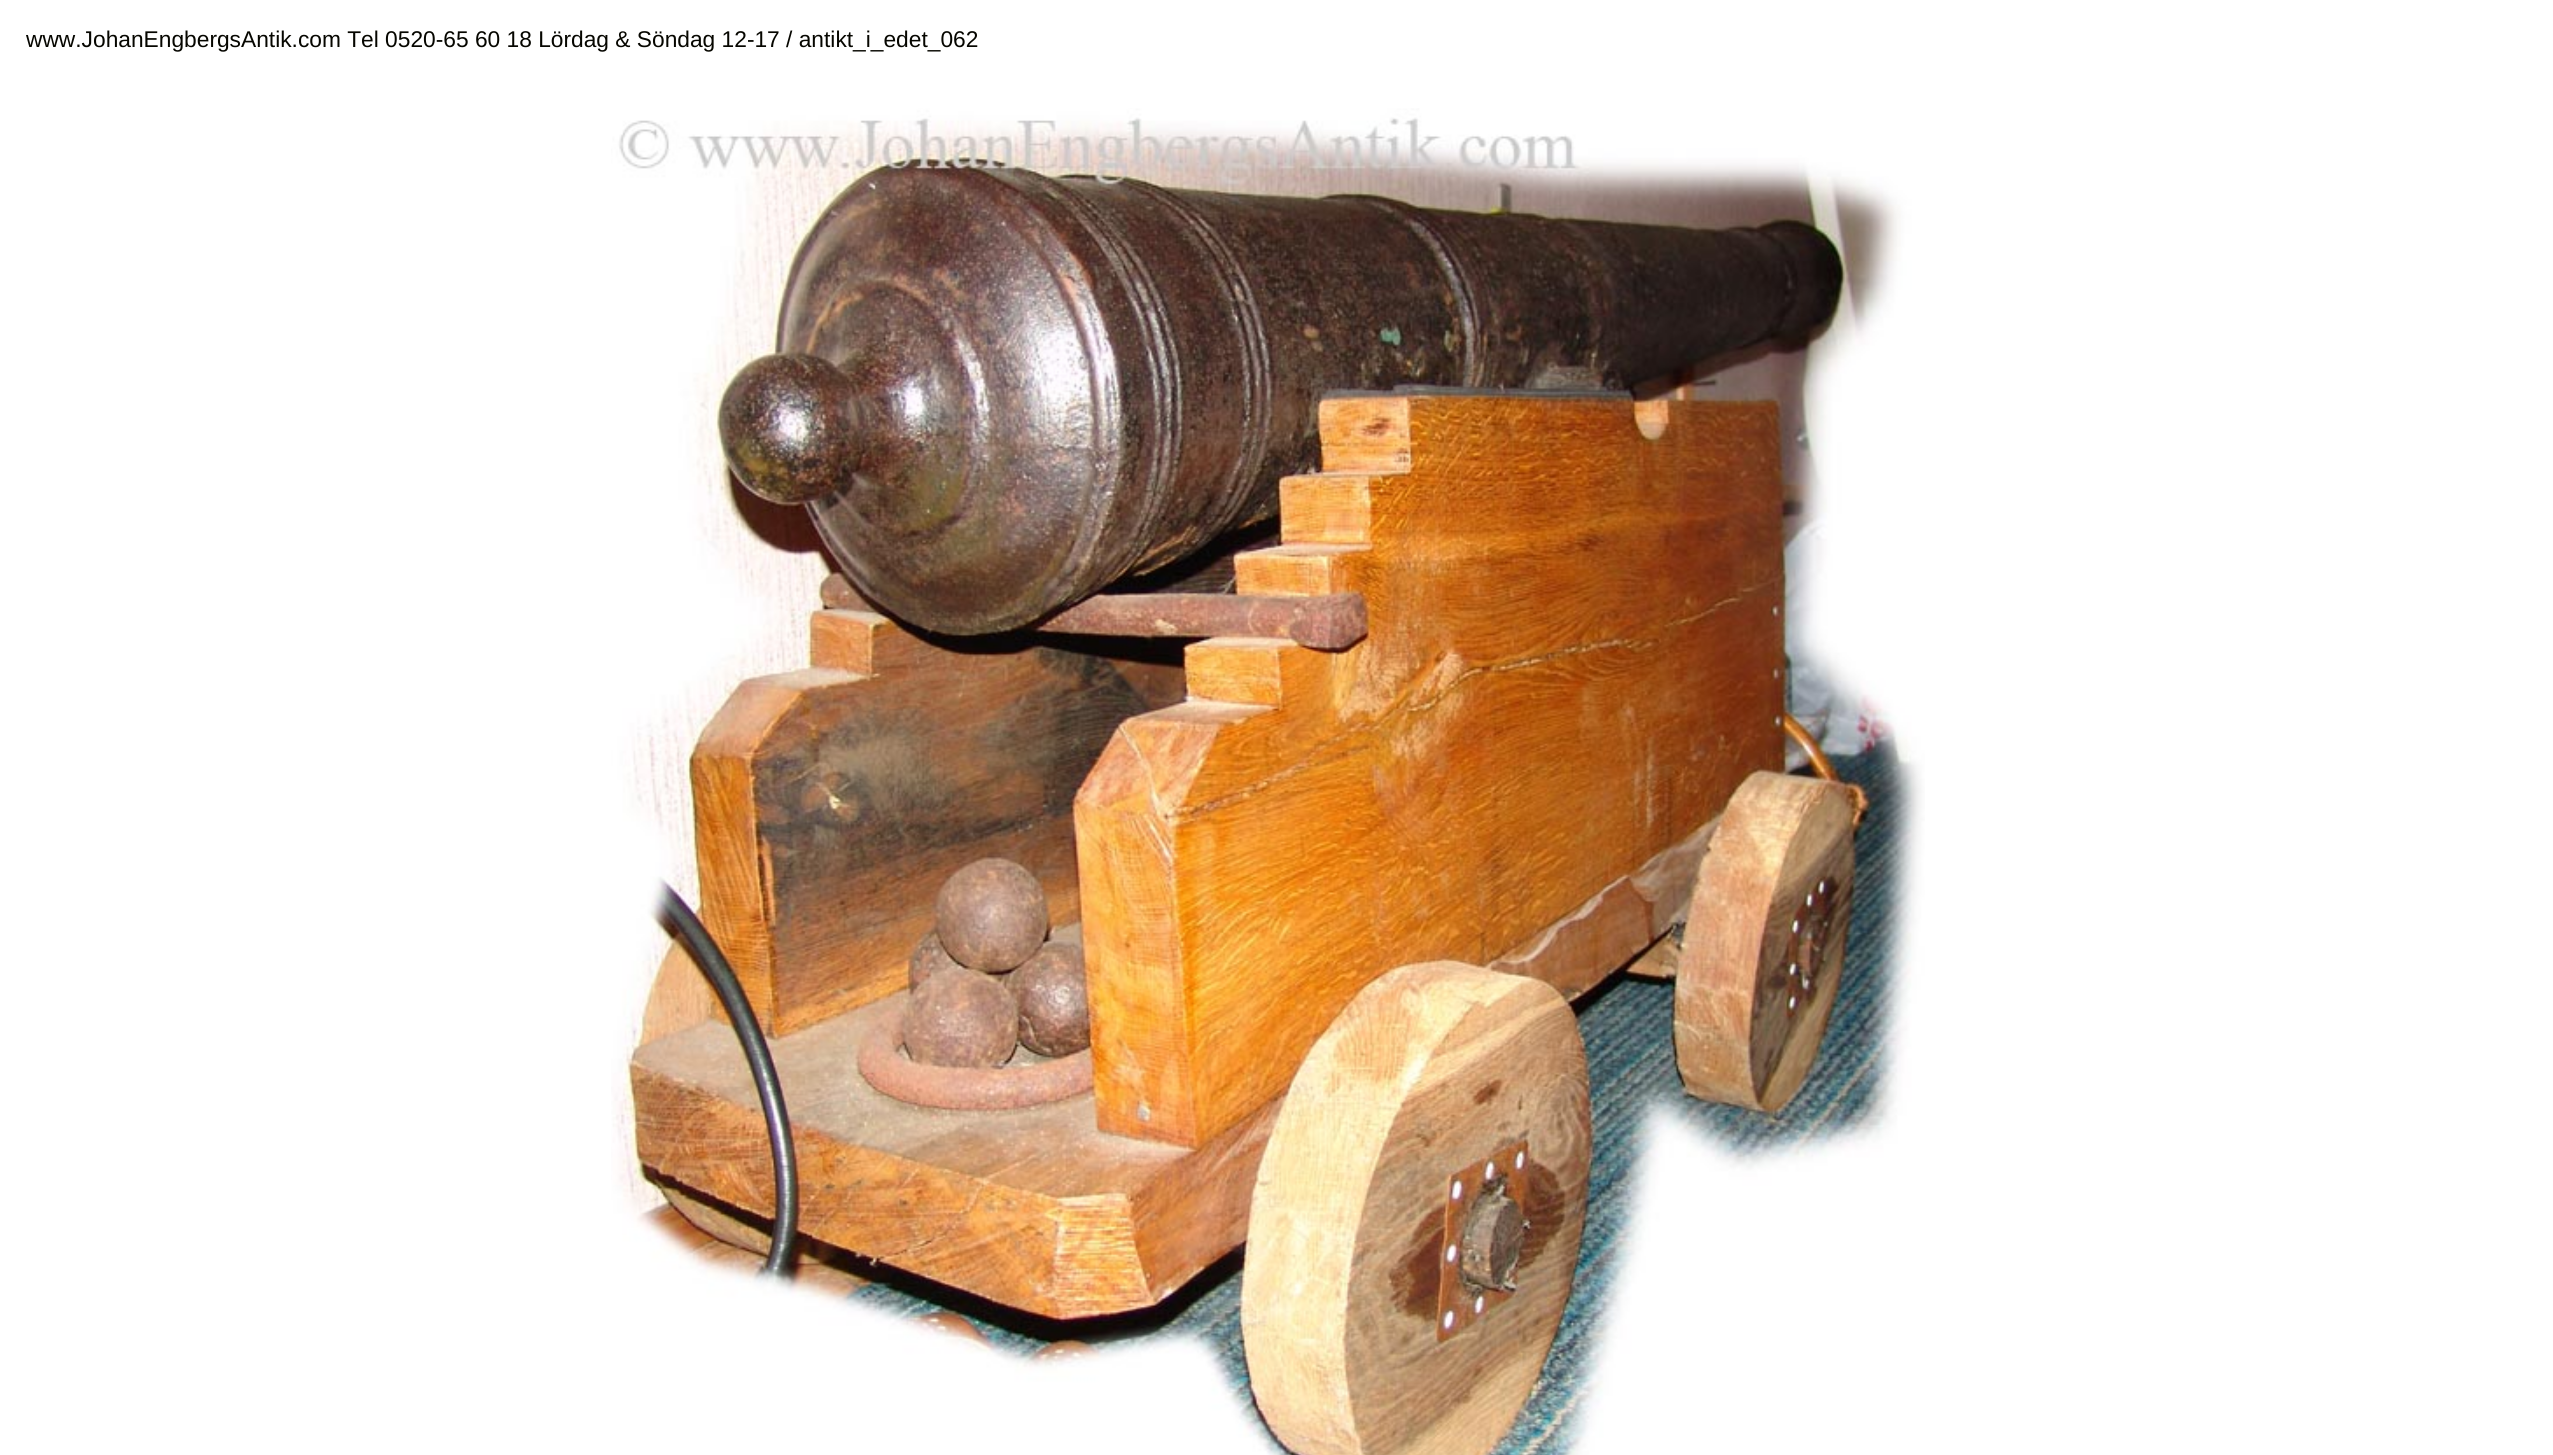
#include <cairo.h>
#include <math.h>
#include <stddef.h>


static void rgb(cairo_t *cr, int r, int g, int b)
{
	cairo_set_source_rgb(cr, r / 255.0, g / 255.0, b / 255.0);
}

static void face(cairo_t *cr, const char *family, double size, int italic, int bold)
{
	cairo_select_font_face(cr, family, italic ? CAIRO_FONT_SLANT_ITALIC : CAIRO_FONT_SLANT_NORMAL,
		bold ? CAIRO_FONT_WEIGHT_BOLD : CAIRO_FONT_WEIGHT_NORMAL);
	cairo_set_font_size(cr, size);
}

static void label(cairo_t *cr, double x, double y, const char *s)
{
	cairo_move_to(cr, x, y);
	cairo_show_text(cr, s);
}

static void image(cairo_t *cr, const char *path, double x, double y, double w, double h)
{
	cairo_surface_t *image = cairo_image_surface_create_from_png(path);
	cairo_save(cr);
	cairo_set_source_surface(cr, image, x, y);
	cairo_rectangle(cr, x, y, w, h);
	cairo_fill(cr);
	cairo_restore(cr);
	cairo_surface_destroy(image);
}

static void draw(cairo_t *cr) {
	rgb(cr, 255, 255, 255);
	cairo_paint(cr);
	face(cr, "Liberation Sans", 22.75, 0, 0);
	rgb(cr, 6, 6, 0);
	label(cr, 26, 47, "www.JohanEngbergsAntik.com Tel 0520-65 60 18 Lördag & Söndag 12-17 / antikt_i_edet_062");
	image(cr, "image0.png", 611, 108, 1314, 1347);
}

int main(void) {
	cairo_surface_t *surface = cairo_image_surface_create(CAIRO_FORMAT_RGB24, 2553, 1455);
	cairo_t *cr = cairo_create(surface);
	cairo_font_options_t *options = cairo_font_options_create();
	cairo_font_options_set_hint_metrics(options, CAIRO_HINT_METRICS_OFF);
	cairo_font_options_set_hint_style(options, CAIRO_HINT_STYLE_NONE);
	cairo_set_font_options(cr, options);
	cairo_set_miter_limit(cr, 4);
	draw(cr);
	cairo_surface_write_to_png(surface, "render.png");
	cairo_font_options_destroy(options);
	cairo_destroy(cr);
	cairo_surface_destroy(surface);
	return 0;
}
